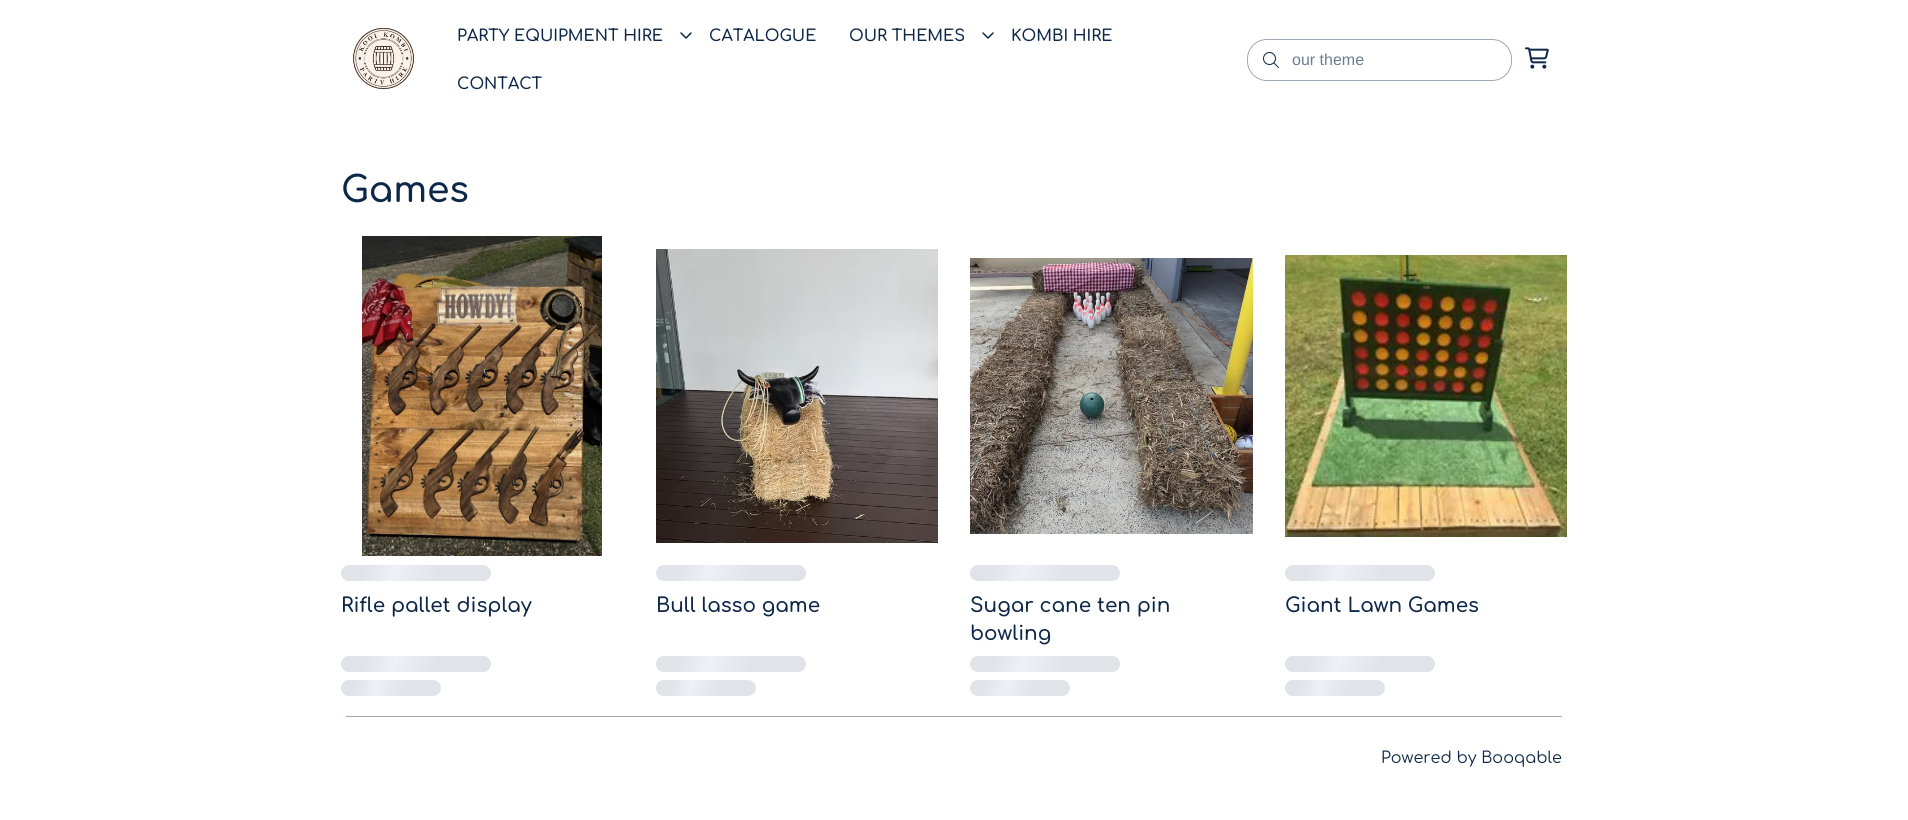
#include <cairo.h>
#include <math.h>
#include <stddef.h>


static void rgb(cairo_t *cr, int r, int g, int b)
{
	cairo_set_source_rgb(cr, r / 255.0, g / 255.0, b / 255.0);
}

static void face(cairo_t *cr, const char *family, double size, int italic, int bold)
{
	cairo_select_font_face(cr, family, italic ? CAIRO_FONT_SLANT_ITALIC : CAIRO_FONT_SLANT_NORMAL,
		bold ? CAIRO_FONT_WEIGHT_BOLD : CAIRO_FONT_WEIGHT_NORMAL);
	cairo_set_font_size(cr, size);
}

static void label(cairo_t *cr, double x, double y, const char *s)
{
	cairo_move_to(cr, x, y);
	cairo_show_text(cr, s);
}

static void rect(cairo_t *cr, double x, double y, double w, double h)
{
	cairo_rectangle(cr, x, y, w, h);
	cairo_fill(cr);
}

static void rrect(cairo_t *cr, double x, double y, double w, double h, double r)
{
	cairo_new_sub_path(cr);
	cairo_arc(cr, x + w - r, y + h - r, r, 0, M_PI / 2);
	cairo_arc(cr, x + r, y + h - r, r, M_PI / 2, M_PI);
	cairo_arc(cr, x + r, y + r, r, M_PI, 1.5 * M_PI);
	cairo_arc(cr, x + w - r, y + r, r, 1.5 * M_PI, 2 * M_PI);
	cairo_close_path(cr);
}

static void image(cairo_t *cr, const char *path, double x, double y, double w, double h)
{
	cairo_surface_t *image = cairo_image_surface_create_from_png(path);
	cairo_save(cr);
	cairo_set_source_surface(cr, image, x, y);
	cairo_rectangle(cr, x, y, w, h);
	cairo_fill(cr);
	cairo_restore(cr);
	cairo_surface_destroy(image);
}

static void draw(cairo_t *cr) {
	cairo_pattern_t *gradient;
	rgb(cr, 255, 255, 255);
	cairo_paint(cr);
	image(cr, "image0.png", 353, 28, 61, 62);
	face(cr, "Comfortaa SemiBold", 16, 0, 0);
	rgb(cr, 12, 39, 71);
	label(cr, 457, 41, "PARTY EQUIPMENT HIRE");
	image(cr, "image1.png", 680, 32, 12, 7);
	label(cr, 709, 41, "CATALOGUE");
	label(cr, 849, 41, "OUR THEMES");
	image(cr, "image1.png", 982, 32, 12, 7);
	label(cr, 1011, 41, "KOMBI HIRE");
	label(cr, 457, 89, "CONTACT");
	rrect(cr, 1247.5, 39.5, 264, 41, 19.5);
	rgb(cr, 158, 169, 181);
	cairo_set_line_width(cr, 1);
	cairo_stroke(cr);
	image(cr, "image2.png", 1263, 52, 16, 16);
	face(cr, "Liberation Sans", 16, 0, 0);
	rgb(cr, 109, 125, 145);
	label(cr, 1292, 65, "our theme");
	image(cr, "image3.png", 1525, 47, 24, 22);
	face(cr, "Comfortaa SemiBold", 36, 0, 0);
	rgb(cr, 12, 39, 71);
	label(cr, 341, 202, "Games");
	image(cr, "image4.png", 362, 236, 240, 320);
	gradient = cairo_pattern_create_linear(356, 524, 626, 622);
	cairo_pattern_add_color_stop_rgba(gradient, 0.08, 0.878, 0.894, 0.91, 1);
	cairo_pattern_add_color_stop_rgba(gradient, 0.18, 0.929, 0.945, 0.961, 1);
	cairo_pattern_add_color_stop_rgba(gradient, 0.33, 0.878, 0.894, 0.91, 1);
	cairo_set_source(cr, gradient);
	cairo_pattern_destroy(gradient);
	rrect(cr, 341, 565, 150, 16, 8);
	cairo_fill(cr);
	face(cr, "Comfortaa SemiBold", 20, 0, 0);
	rgb(cr, 12, 39, 71);
	label(cr, 341, 612, "Rifle pallet display");
	gradient = cairo_pattern_create_linear(356, 615, 626, 713);
	cairo_pattern_add_color_stop_rgba(gradient, 0.08, 0.878, 0.894, 0.91, 1);
	cairo_pattern_add_color_stop_rgba(gradient, 0.18, 0.929, 0.945, 0.961, 1);
	cairo_pattern_add_color_stop_rgba(gradient, 0.33, 0.878, 0.894, 0.91, 1);
	cairo_set_source(cr, gradient);
	cairo_pattern_destroy(gradient);
	rrect(cr, 341, 656, 150, 16, 8);
	cairo_fill(cr);
	gradient = cairo_pattern_create_linear(350, 655, 532, 721);
	cairo_pattern_add_color_stop_rgba(gradient, 0.08, 0.878, 0.894, 0.91, 1);
	cairo_pattern_add_color_stop_rgba(gradient, 0.18, 0.929, 0.945, 0.961, 1);
	cairo_pattern_add_color_stop_rgba(gradient, 0.33, 0.878, 0.894, 0.91, 1);
	cairo_set_source(cr, gradient);
	cairo_pattern_destroy(gradient);
	rrect(cr, 341, 680, 100, 16, 8);
	cairo_fill(cr);
	image(cr, "image5.png", 656, 249, 282, 294);
	gradient = cairo_pattern_create_linear(671, 524, 941, 622);
	cairo_pattern_add_color_stop_rgba(gradient, 0.08, 0.878, 0.894, 0.91, 1);
	cairo_pattern_add_color_stop_rgba(gradient, 0.18, 0.929, 0.945, 0.961, 1);
	cairo_pattern_add_color_stop_rgba(gradient, 0.33, 0.878, 0.894, 0.91, 1);
	cairo_set_source(cr, gradient);
	cairo_pattern_destroy(gradient);
	rrect(cr, 656, 565, 150, 16, 8);
	cairo_fill(cr);
	rgb(cr, 12, 39, 71);
	label(cr, 656, 612, "Bull lasso game");
	gradient = cairo_pattern_create_linear(671, 615, 941, 713);
	cairo_pattern_add_color_stop_rgba(gradient, 0.08, 0.878, 0.894, 0.91, 1);
	cairo_pattern_add_color_stop_rgba(gradient, 0.18, 0.929, 0.945, 0.961, 1);
	cairo_pattern_add_color_stop_rgba(gradient, 0.33, 0.878, 0.894, 0.91, 1);
	cairo_set_source(cr, gradient);
	cairo_pattern_destroy(gradient);
	rrect(cr, 656, 656, 150, 16, 8);
	cairo_fill(cr);
	gradient = cairo_pattern_create_linear(665, 655, 847, 721);
	cairo_pattern_add_color_stop_rgba(gradient, 0.08, 0.878, 0.894, 0.91, 1);
	cairo_pattern_add_color_stop_rgba(gradient, 0.18, 0.929, 0.945, 0.961, 1);
	cairo_pattern_add_color_stop_rgba(gradient, 0.33, 0.878, 0.894, 0.91, 1);
	cairo_set_source(cr, gradient);
	cairo_pattern_destroy(gradient);
	rrect(cr, 656, 680, 100, 16, 8);
	cairo_fill(cr);
	image(cr, "image6.png", 970, 258, 283, 276);
	gradient = cairo_pattern_create_linear(985, 524, 1255, 622);
	cairo_pattern_add_color_stop_rgba(gradient, 0.08, 0.878, 0.894, 0.91, 1);
	cairo_pattern_add_color_stop_rgba(gradient, 0.18, 0.929, 0.945, 0.961, 1);
	cairo_pattern_add_color_stop_rgba(gradient, 0.33, 0.878, 0.894, 0.91, 1);
	cairo_set_source(cr, gradient);
	cairo_pattern_destroy(gradient);
	rrect(cr, 970, 565, 150, 16, 8);
	cairo_fill(cr);
	rgb(cr, 12, 39, 71);
	label(cr, 970, 612, "Sugar cane ten pin");
	label(cr, 970, 640, "bowling");
	gradient = cairo_pattern_create_linear(985, 615, 1255, 713);
	cairo_pattern_add_color_stop_rgba(gradient, 0.08, 0.878, 0.894, 0.91, 1);
	cairo_pattern_add_color_stop_rgba(gradient, 0.18, 0.929, 0.945, 0.961, 1);
	cairo_pattern_add_color_stop_rgba(gradient, 0.33, 0.878, 0.894, 0.91, 1);
	cairo_set_source(cr, gradient);
	cairo_pattern_destroy(gradient);
	rrect(cr, 970, 656, 150, 16, 8);
	cairo_fill(cr);
	gradient = cairo_pattern_create_linear(979, 655, 1161, 721);
	cairo_pattern_add_color_stop_rgba(gradient, 0.08, 0.878, 0.894, 0.91, 1);
	cairo_pattern_add_color_stop_rgba(gradient, 0.18, 0.929, 0.945, 0.961, 1);
	cairo_pattern_add_color_stop_rgba(gradient, 0.33, 0.878, 0.894, 0.91, 1);
	cairo_set_source(cr, gradient);
	cairo_pattern_destroy(gradient);
	rrect(cr, 970, 680, 100, 16, 8);
	cairo_fill(cr);
	image(cr, "image7.png", 1285, 255, 282, 282);
	gradient = cairo_pattern_create_linear(1300, 524, 1570, 622);
	cairo_pattern_add_color_stop_rgba(gradient, 0.08, 0.878, 0.894, 0.91, 1);
	cairo_pattern_add_color_stop_rgba(gradient, 0.18, 0.929, 0.945, 0.961, 1);
	cairo_pattern_add_color_stop_rgba(gradient, 0.33, 0.878, 0.894, 0.91, 1);
	cairo_set_source(cr, gradient);
	cairo_pattern_destroy(gradient);
	rrect(cr, 1285, 565, 150, 16, 8);
	cairo_fill(cr);
	rgb(cr, 12, 39, 71);
	label(cr, 1285, 612, "Giant Lawn Games");
	gradient = cairo_pattern_create_linear(1300, 615, 1570, 713);
	cairo_pattern_add_color_stop_rgba(gradient, 0.08, 0.878, 0.894, 0.91, 1);
	cairo_pattern_add_color_stop_rgba(gradient, 0.18, 0.929, 0.945, 0.961, 1);
	cairo_pattern_add_color_stop_rgba(gradient, 0.33, 0.878, 0.894, 0.91, 1);
	cairo_set_source(cr, gradient);
	cairo_pattern_destroy(gradient);
	rrect(cr, 1285, 656, 150, 16, 8);
	cairo_fill(cr);
	gradient = cairo_pattern_create_linear(1294, 655, 1476, 721);
	cairo_pattern_add_color_stop_rgba(gradient, 0.08, 0.878, 0.894, 0.91, 1);
	cairo_pattern_add_color_stop_rgba(gradient, 0.18, 0.929, 0.945, 0.961, 1);
	cairo_pattern_add_color_stop_rgba(gradient, 0.33, 0.878, 0.894, 0.91, 1);
	cairo_set_source(cr, gradient);
	cairo_pattern_destroy(gradient);
	rrect(cr, 1285, 680, 100, 16, 8);
	cairo_fill(cr);
	rgb(cr, 158, 169, 181);
	rect(cr, 346, 716, 1216, 1);
	face(cr, "Comfortaa", 16, 0, 0);
	rgb(cr, 12, 39, 71);
	label(cr, 1381, 763, "Powered by Booqable");
}

int main(void) {
	cairo_surface_t *surface = cairo_image_surface_create(CAIRO_FORMAT_RGB24, 1908, 820);
	cairo_t *cr = cairo_create(surface);
	cairo_font_options_t *options = cairo_font_options_create();
	cairo_font_options_set_hint_metrics(options, CAIRO_HINT_METRICS_OFF);
	cairo_font_options_set_hint_style(options, CAIRO_HINT_STYLE_NONE);
	cairo_set_font_options(cr, options);
	cairo_set_miter_limit(cr, 4);
	draw(cr);
	cairo_surface_write_to_png(surface, "render.png");
	cairo_font_options_destroy(options);
	cairo_destroy(cr);
	cairo_surface_destroy(surface);
	return 0;
}
